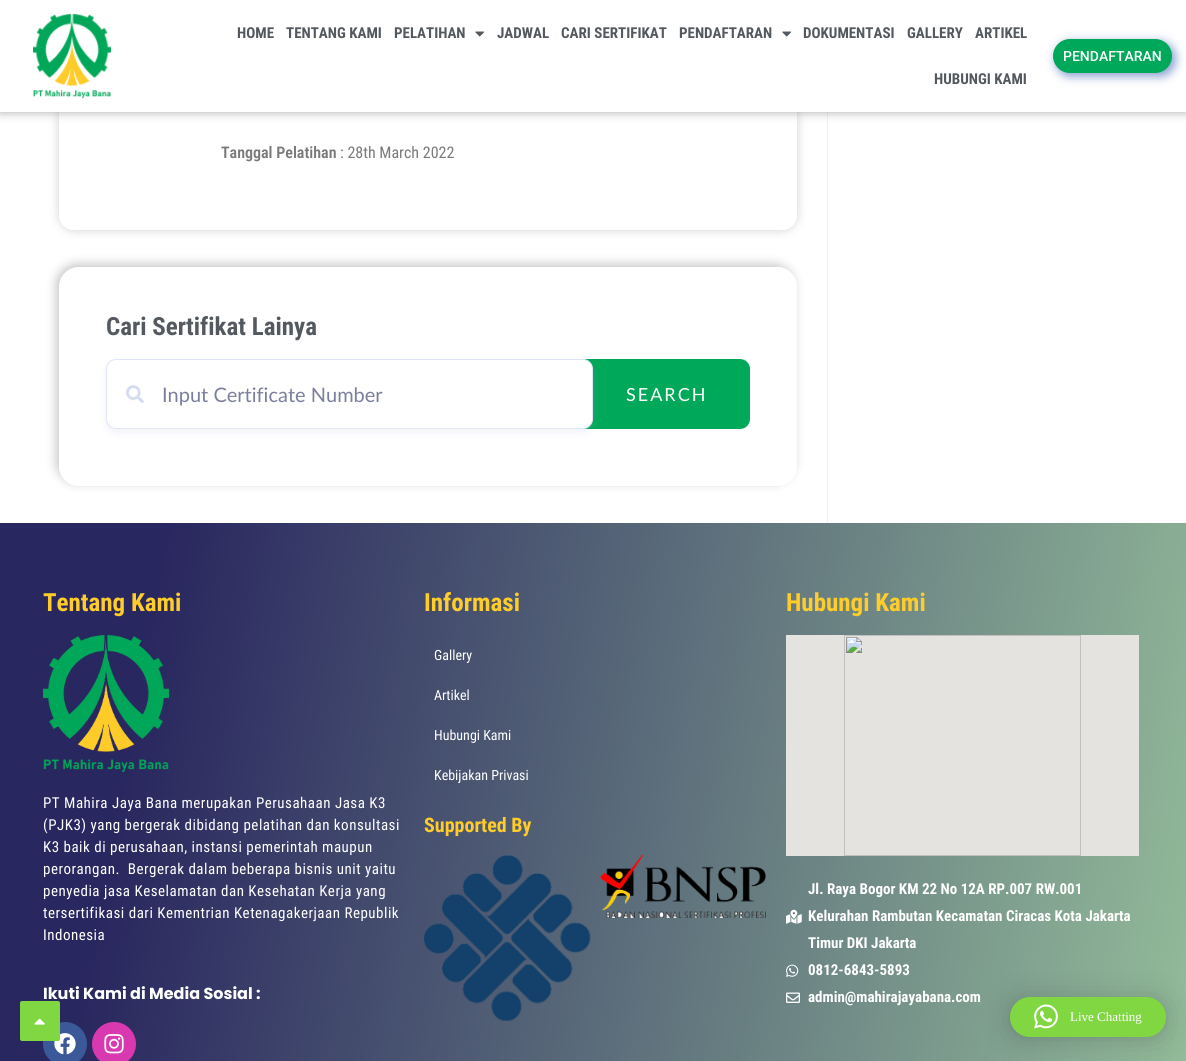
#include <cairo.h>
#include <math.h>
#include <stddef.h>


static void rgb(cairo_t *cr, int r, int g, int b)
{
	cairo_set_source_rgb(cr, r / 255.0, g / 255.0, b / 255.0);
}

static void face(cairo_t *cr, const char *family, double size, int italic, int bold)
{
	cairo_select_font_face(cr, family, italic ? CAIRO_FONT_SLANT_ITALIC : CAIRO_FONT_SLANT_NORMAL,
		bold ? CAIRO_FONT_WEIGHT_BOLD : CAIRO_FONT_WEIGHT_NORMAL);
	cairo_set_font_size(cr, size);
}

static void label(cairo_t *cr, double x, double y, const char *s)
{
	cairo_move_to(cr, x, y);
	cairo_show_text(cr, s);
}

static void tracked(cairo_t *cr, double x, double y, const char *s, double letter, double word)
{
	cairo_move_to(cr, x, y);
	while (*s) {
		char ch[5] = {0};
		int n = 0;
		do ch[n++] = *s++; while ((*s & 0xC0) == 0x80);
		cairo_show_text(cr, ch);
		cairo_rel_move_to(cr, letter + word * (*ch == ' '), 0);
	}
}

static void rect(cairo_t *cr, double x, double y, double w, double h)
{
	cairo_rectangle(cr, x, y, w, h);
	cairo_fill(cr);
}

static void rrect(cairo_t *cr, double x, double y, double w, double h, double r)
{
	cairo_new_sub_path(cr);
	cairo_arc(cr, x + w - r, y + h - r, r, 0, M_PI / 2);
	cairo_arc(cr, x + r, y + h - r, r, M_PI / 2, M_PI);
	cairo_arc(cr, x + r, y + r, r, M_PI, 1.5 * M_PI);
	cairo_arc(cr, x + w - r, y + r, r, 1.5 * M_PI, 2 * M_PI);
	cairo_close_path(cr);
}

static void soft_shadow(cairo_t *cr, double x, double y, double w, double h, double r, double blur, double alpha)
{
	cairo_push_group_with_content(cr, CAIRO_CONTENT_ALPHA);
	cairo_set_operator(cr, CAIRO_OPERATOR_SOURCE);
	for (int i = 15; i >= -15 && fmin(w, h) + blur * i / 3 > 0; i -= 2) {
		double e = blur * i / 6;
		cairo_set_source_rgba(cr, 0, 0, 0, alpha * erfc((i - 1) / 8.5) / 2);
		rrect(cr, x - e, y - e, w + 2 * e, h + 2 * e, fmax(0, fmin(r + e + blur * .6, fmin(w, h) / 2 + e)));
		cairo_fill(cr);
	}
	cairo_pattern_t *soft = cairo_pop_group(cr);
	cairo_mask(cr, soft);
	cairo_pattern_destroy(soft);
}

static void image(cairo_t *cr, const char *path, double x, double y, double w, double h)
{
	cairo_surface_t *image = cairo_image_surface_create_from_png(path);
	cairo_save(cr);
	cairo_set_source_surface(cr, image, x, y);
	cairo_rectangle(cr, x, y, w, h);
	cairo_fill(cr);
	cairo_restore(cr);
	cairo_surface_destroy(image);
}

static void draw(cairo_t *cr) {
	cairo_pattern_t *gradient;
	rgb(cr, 255, 255, 255);
	cairo_paint(cr);
	rgb(cr, 241, 241, 241);
	rect(cr, 827, 112, 1, 411);
	rgb(cr, 83, 81, 81);
	soft_shadow(cr, 0, 0, 1186, 112, 0, 5, 0.5);
	cairo_save(cr);
	cairo_set_fill_rule(cr, CAIRO_FILL_RULE_EVEN_ODD);
	cairo_new_path(cr);
	cairo_move_to(cr, 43, 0);
	cairo_line_to(cr, 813, 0);
	cairo_line_to(cr, 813, 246);
	cairo_line_to(cr, 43, 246);
	cairo_close_path(cr);
	cairo_move_to(cr, 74, -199);
	cairo_line_to(cr, 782, -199);
	cairo_curve_to(cr, 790.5, -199, 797, -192.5, 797, -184);
	cairo_line_to(cr, 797, 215);
	cairo_curve_to(cr, 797, 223.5, 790.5, 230, 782, 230);
	cairo_line_to(cr, 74, 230);
	cairo_curve_to(cr, 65.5, 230, 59, 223.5, 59, 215);
	cairo_line_to(cr, 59, -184);
	cairo_curve_to(cr, 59, -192.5, 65.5, -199, 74, -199);
	cairo_close_path(cr);
	cairo_clip(cr);
	rgb(cr, 162, 162, 162);
	soft_shadow(cr, 59, -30, 738, 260, 15, 5, 0.5);
	cairo_restore(cr);
	rgb(cr, 255, 255, 255);
	rect(cr, 0, 0, 1186, 112);
	image(cr, "image0.png", 33, 13, 78, 86);
	face(cr, "Roboto Condensed", 15, 0, 1);
	rgb(cr, 84, 89, 95);
	label(cr, 237, 38, "HOME");
	label(cr, 286, 38, "TENTANG KAMI");
	label(cr, 394, 38, "PELATIHAN");
	image(cr, "image1.png", 475, 31, 9, 6);
	label(cr, 497, 38, "JADWAL");
	label(cr, 561, 38, "CARI SERTIFIKAT");
	label(cr, 679, 38, "PENDAFTARAN");
	image(cr, "image1.png", 782, 31, 9, 6);
	label(cr, 803, 38, "DOKUMENTASI");
	label(cr, 907, 38, "GALLERY");
	label(cr, 975, 38, "ARTIKEL");
	label(cr, 934, 84, "HUBUNGI KAMI");
	rgb(cr, 84, 117, 186);
	soft_shadow(cr, 1056, 42, 119, 34, 17, 5, 0.73);
	rgb(cr, 0, 168, 89);
	rrect(cr, 1053, 39, 119, 34, 17);
	cairo_fill(cr);
	face(cr, "Roboto Medium", 14, 0, 0);
	rgb(cr, 255, 255, 255);
	label(cr, 1063, 61, "PENDAFTARAN");
	face(cr, "Roboto Condensed SemiBold", 16, 0, 0);
	rgb(cr, 122, 122, 122);
	label(cr, 221, 158, "Tanggal Pelatihan");
	face(cr, "Roboto Condensed", 16, 0, 0);
	label(cr, 340, 158, ": 28th March 2022");
	cairo_save(cr);
	cairo_set_fill_rule(cr, CAIRO_FILL_RULE_EVEN_ODD);
	cairo_new_path(cr);
	cairo_move_to(cr, 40, 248);
	cairo_line_to(cr, 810, 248);
	cairo_line_to(cr, 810, 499);
	cairo_line_to(cr, 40, 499);
	cairo_close_path(cr);
	cairo_move_to(cr, 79, 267);
	cairo_line_to(cr, 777, 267);
	cairo_curve_to(cr, 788, 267, 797, 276, 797, 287);
	cairo_line_to(cr, 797, 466);
	cairo_curve_to(cr, 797, 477, 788, 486, 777, 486);
	cairo_line_to(cr, 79, 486);
	cairo_curve_to(cr, 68, 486, 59, 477, 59, 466);
	cairo_line_to(cr, 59, 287);
	cairo_curve_to(cr, 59, 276, 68, 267, 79, 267);
	cairo_close_path(cr);
	cairo_clip(cr);
	rgb(cr, 144, 144, 144);
	soft_shadow(cr, 56, 264, 738, 219, 20, 5, 0.5);
	cairo_restore(cr);
	face(cr, "Roboto Condensed", 25, 0, 1);
	rgb(cr, 84, 89, 95);
	label(cr, 106, 335, "Cari Sertifikat Lainya");
	rgb(cr, 0, 168, 89);
	cairo_new_path(cr);
	cairo_move_to(cr, 583, 359);
	cairo_line_to(cr, 740, 359);
	cairo_curve_to(cr, 745.5, 359, 750, 363.5, 750, 369);
	cairo_line_to(cr, 750, 419);
	cairo_curve_to(cr, 750, 424.5, 745.5, 429, 740, 429);
	cairo_line_to(cr, 583, 429);
	cairo_close_path(cr);
	cairo_fill(cr);
	rgb(cr, 165, 174, 213);
	soft_shadow(cr, 106, 363, 487, 70, 10, 4, 0.15);
	rgb(cr, 255, 255, 255);
	rrect(cr, 106.5, 359.5, 486, 69, 9.5);
	cairo_fill_preserve(cr);
	rgb(cr, 224, 229, 248);
	cairo_set_line_width(cr, 1);
	cairo_stroke(cr);
	image(cr, "image2.png", 126, 385, 18, 19);
	face(cr, "Lato", 20, 0, 0);
	rgb(cr, 123, 127, 156);
	label(cr, 162, 402, "Input Certificate Number");
	face(cr, "Lato", 18, 0, 0);
	rgb(cr, 255, 255, 255);
	tracked(cr, 626, 401, "SEARCH", 2, 0);
	gradient = cairo_pattern_create_linear(-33, 712, 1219, 932);
	cairo_pattern_add_color_stop_rgba(gradient, 0.13, 0.161, 0.153, 0.373, 1);
	cairo_pattern_add_color_stop_rgba(gradient, 1, 0.58, 0.737, 0.604, 1);
	cairo_set_source(cr, gradient);
	cairo_pattern_destroy(gradient);
	rect(cr, 0, 523, 1186, 538);
	face(cr, "Roboto Condensed", 25, 0, 1);
	rgb(cr, 255, 204, 41);
	label(cr, 43, 611, "Tentang Kami");
	image(cr, "image3.png", 43, 635, 126, 137);
	face(cr, "Roboto Condensed", 15, 0, 0);
	rgb(cr, 255, 255, 255);
	tracked(cr, 43, 808, "PT Mahira Jaya Bana merupakan Perusahaan Jasa K3", 0.5, 0);
	tracked(cr, 43, 830, "(PJK3) yang bergerak dibidang pelatihan dan konsultasi", 0.5, 0);
	tracked(cr, 43, 852, "K3 baik di perusahaan, instansi pemerintah maupun", 0.5, 0);
	tracked(cr, 43, 874, "perorangan.  Bergerak dalam beberapa bisnis unit yaitu", 0.5, 0);
	tracked(cr, 43, 896, "penyedia jasa Keselamatan dan Kesehatan Kerja yang", 0.5, 0);
	tracked(cr, 43, 918, "tersertifikasi dari Kementrian Ketenagakerjaan Republik", 0.5, 0);
	tracked(cr, 43, 940, "Indonesia", 0.5, 0);
	face(cr, "Poppins", 16, 0, 1);
	label(cr, 43, 999, "Ikuti Kami di Media Sosial :");
	rgb(cr, 59, 89, 152);
	cairo_new_path(cr);
	cairo_arc(cr, 65, 1044, 22, 0, 2 * M_PI);
	cairo_fill(cr);
	image(cr, "image4.png", 54, 1033, 22, 22);
	rgb(cr, 217, 57, 176);
	cairo_arc(cr, 114, 1044, 22, 0, 2 * M_PI);
	cairo_fill(cr);
	image(cr, "image5.png", 104, 1034, 20, 20);
	face(cr, "Roboto Condensed", 25, 0, 1);
	rgb(cr, 255, 204, 41);
	label(cr, 424, 611, "Informasi");
	face(cr, "Roboto Condensed", 14, 0, 0);
	rgb(cr, 255, 255, 255);
	label(cr, 434, 660, "Gallery");
	label(cr, 434, 700, "Artikel");
	label(cr, 434, 740, "Hubungi Kami");
	label(cr, 434, 780, "Kebijakan Privasi");
	face(cr, "Roboto Condensed", 20, 0, 1);
	rgb(cr, 255, 204, 41);
	label(cr, 424, 832, "Supported By");
	image(cr, "image6.png", 424, 855, 167, 166);
	image(cr, "image7.png", 600, 855, 166, 63);
	face(cr, "Roboto Condensed", 25, 0, 1);
	label(cr, 786, 611, "Hubungi Kami");
	image(cr, "image8.png", 786, 635, 353, 221);
	image(cr, "image9.png", 786, 909, 16, 15);
	face(cr, "Roboto Condensed", 15, 0, 1);
	rgb(cr, 255, 255, 255);
	label(cr, 808, 894, "Jl. Raya Bogor KM 22 No 12A RP.007 RW.001");
	label(cr, 808, 921, "Kelurahan Rambutan Kecamatan Ciracas Kota Jakarta");
	label(cr, 808, 948, "Timur DKI Jakarta");
	image(cr, "image10.png", 786, 964, 13, 13);
	label(cr, 808, 975, "0812-6843-5893");
	image(cr, "image11.png", 786, 992, 14, 11);
	label(cr, 808, 1002, "admin@mahirajayabana.com");
	rgb(cr, 129, 215, 66);
	rrect(cr, 20, 1001, 40, 40, 2);
	cairo_fill(cr);
	image(cr, "image12.png", 34, 1018, 11, 7);
	rgb(cr, 0, 0, 0);
	soft_shadow(cr, 1010, 999, 156, 40, 20, 16, 0.16);
	soft_shadow(cr, 1010, 998, 156, 40, 20, 3, 0.06);
	rgb(cr, 129, 215, 66);
	rrect(cr, 1010, 997, 156, 40, 20);
	cairo_fill(cr);
	image(cr, "image13.png", 1034, 1004, 24, 25);
	face(cr, "Liberation Serif", 13, 0, 0);
	rgb(cr, 255, 255, 255);
	label(cr, 1070, 1021, "Live Chatting");
}

int main(void) {
	cairo_surface_t *surface = cairo_image_surface_create(CAIRO_FORMAT_RGB24, 1186, 1061);
	cairo_t *cr = cairo_create(surface);
	cairo_font_options_t *options = cairo_font_options_create();
	cairo_font_options_set_hint_metrics(options, CAIRO_HINT_METRICS_OFF);
	cairo_font_options_set_hint_style(options, CAIRO_HINT_STYLE_NONE);
	cairo_set_font_options(cr, options);
	cairo_set_miter_limit(cr, 4);
	draw(cr);
	cairo_surface_write_to_png(surface, "render.png");
	cairo_font_options_destroy(options);
	cairo_destroy(cr);
	cairo_surface_destroy(surface);
	return 0;
}
